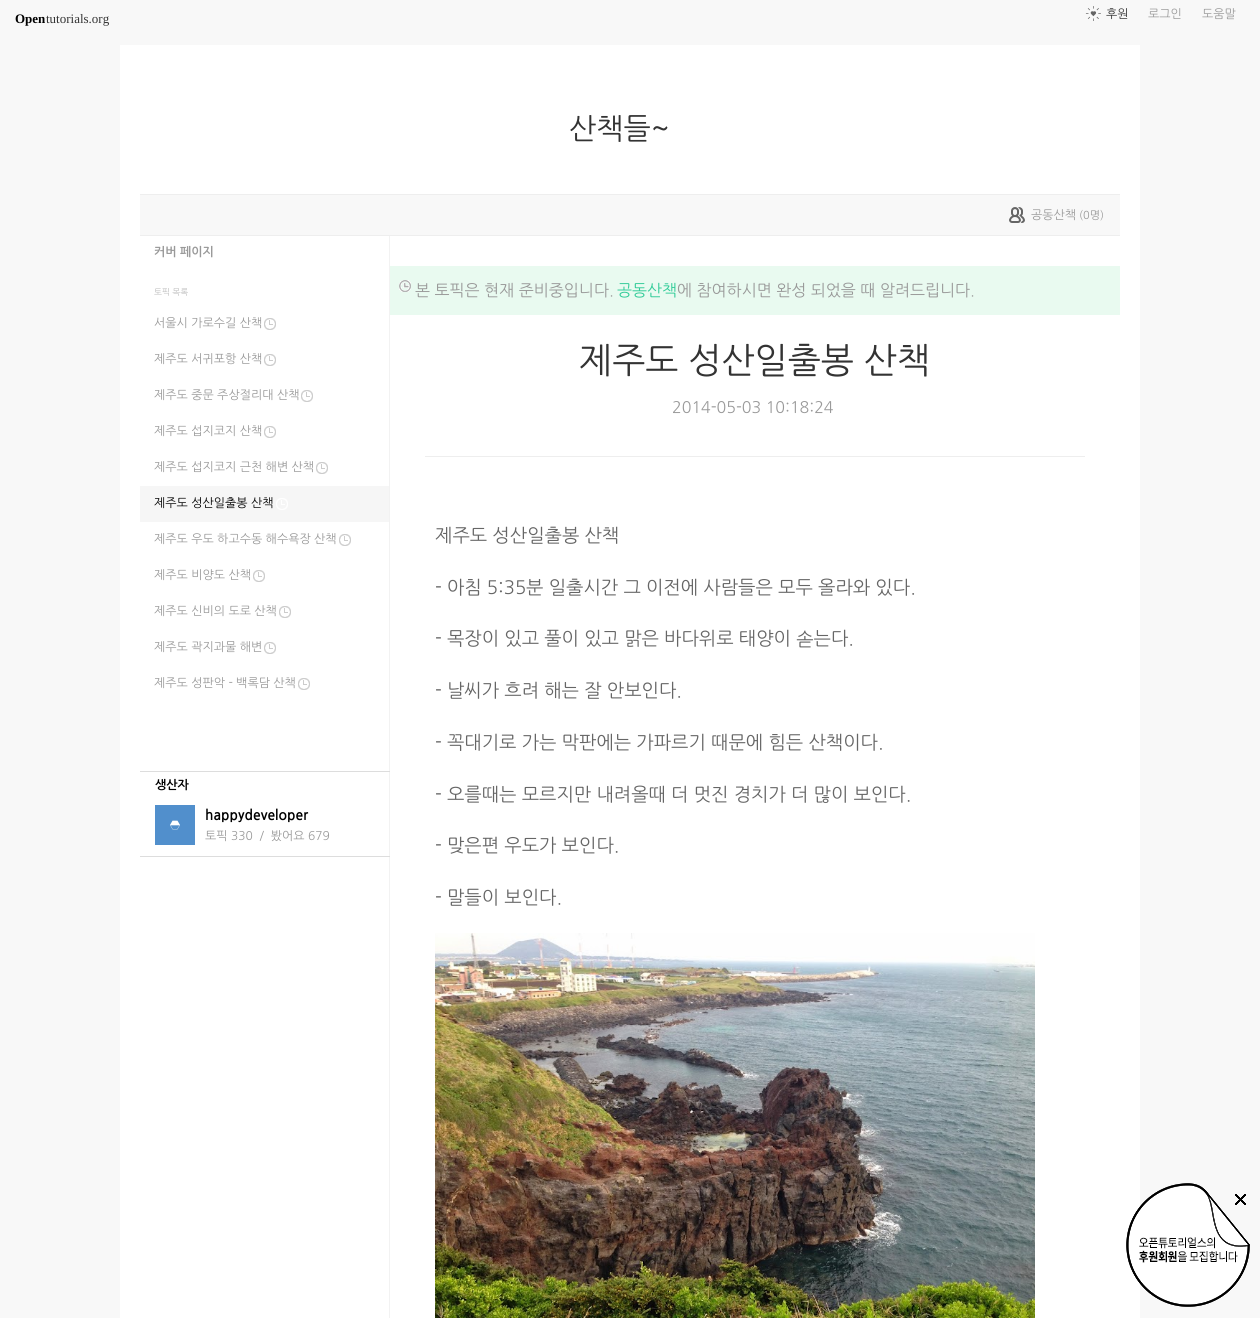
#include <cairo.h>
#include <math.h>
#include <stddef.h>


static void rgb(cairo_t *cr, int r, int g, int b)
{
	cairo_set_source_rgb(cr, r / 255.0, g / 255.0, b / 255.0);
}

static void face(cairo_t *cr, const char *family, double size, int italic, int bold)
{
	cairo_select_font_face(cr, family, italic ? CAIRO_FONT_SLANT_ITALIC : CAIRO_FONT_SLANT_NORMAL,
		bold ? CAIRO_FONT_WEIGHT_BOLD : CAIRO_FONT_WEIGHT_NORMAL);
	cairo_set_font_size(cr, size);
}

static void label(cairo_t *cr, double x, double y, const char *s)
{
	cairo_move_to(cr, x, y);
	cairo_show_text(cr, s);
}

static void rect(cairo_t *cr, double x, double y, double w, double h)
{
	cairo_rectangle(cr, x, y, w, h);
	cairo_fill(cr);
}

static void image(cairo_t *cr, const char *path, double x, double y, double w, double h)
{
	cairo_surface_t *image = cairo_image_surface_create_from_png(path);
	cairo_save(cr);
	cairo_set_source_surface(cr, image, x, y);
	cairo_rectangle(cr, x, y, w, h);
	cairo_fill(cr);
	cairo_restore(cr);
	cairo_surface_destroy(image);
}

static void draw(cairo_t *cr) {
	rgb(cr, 248, 248, 248);
	cairo_paint(cr);
	face(cr, "Liberation Serif", 13, 0, 1);
	rgb(cr, 0, 0, 0);
	label(cr, 15, 23, "Open");
	face(cr, "Liberation Serif", 13, 0, 0);
	rgb(cr, 51, 51, 51);
	label(cr, 46, 23, "tutorials.org");
	image(cr, "image0.png", 1085, 6, 16, 15);
	face(cr, "NanumGothic", 12, 0, 0);
	label(cr, 1106, 18, "후원");
	rgb(cr, 153, 153, 153);
	label(cr, 1148, 18, "로그인");
	label(cr, 1202, 18, "도움말");
	rgb(cr, 255, 255, 255);
	rect(cr, 120, 45, 1020, 1273);
	face(cr, "NanumGothic", 29, 0, 0);
	rgb(cr, 51, 51, 51);
	label(cr, 569, 139, "산책들~");
	rgb(cr, 248, 248, 248);
	rect(cr, 140, 195, 980, 40);
	rgb(cr, 238, 238, 238);
	rect(cr, 140, 194, 980, 1);
	rect(cr, 140, 235, 980, 1);
	image(cr, "image1.png", 1009, 207, 16, 16);
	face(cr, "NanumGothic", 12, 0, 0);
	rgb(cr, 153, 153, 153);
	label(cr, 1031, 219, "공동산책");
	face(cr, "NanumGothic", 11, 0, 0);
	label(cr, 1079, 219, "(0명)");
	rgb(cr, 242, 242, 242);
	rect(cr, 389, 236, 1, 1082);
	face(cr, "NanumGothic", 12, 0, 1);
	rgb(cr, 153, 153, 153);
	label(cr, 154, 256, "커버 페이지");
	face(cr, "NanumGothic", 8.5, 0, 0);
	rgb(cr, 187, 187, 187);
	label(cr, 154, 295, "토픽 목록");
	face(cr, "NanumGothic", 12, 0, 0);
	rgb(cr, 153, 153, 153);
	label(cr, 154, 327, "서울시 가로수길 산책");
	image(cr, "image2.png", 264, 318, 12, 12);
	label(cr, 154, 363, "제주도 서귀포항 산책");
	image(cr, "image2.png", 264, 354, 12, 12);
	label(cr, 154, 399, "제주도 중문 주상절리대 산책");
	image(cr, "image2.png", 301, 390, 12, 12);
	label(cr, 154, 435, "제주도 섭지코지 산책");
	image(cr, "image2.png", 264, 426, 12, 12);
	label(cr, 154, 471, "제주도 섭지코지 근천 해변 산책");
	image(cr, "image2.png", 316, 462, 12, 12);
	rgb(cr, 246, 246, 246);
	rect(cr, 140, 486, 249, 36);
	rgb(cr, 0, 0, 0);
	label(cr, 154, 507, "제주도 성산일출봉 산책");
	image(cr, "image3.png", 276, 498, 12, 12);
	rgb(cr, 153, 153, 153);
	label(cr, 154, 543, "제주도 우도 하고수동 해수욕장 산책");
	image(cr, "image2.png", 339, 534, 12, 12);
	label(cr, 154, 579, "제주도 비양도 산책");
	image(cr, "image2.png", 253, 570, 12, 12);
	label(cr, 154, 615, "제주도 신비의 도로 산책");
	image(cr, "image2.png", 279, 606, 12, 12);
	label(cr, 154, 651, "제주도 곽지과물 해변");
	image(cr, "image2.png", 264, 642, 12, 12);
	label(cr, 154, 687, "제주도 성판악 - 백록담 산책");
	image(cr, "image2.png", 298, 678, 12, 12);
	rgb(cr, 221, 221, 221);
	rect(cr, 140, 771, 250, 1);
	rect(cr, 140, 856, 250, 1);
	face(cr, "NanumGothic", 12, 0, 1);
	rgb(cr, 0, 0, 0);
	label(cr, 155, 789, "생산자");
	image(cr, "image4.png", 155, 805, 40, 40);
	face(cr, "NanumGothic", 14, 0, 1);
	label(cr, 205, 820, "happydeveloper");
	face(cr, "NanumGothic", 12, 0, 0);
	rgb(cr, 153, 153, 153);
	label(cr, 205, 840, "토픽 330  /  봤어요 679");
	rgb(cr, 238, 238, 238);
	rect(cr, 425, 456, 660, 1);
	rgb(cr, 233, 250, 240);
	rect(cr, 390, 266, 730, 49);
	image(cr, "image5.png", 399, 280, 12, 12);
	face(cr, "NanumGothic", 16, 0, 0);
	rgb(cr, 153, 153, 153);
	label(cr, 415, 296, "본 토픽은 현재 준비중입니다.");
	rgb(cr, 51, 204, 153);
	label(cr, 617, 296, "공동산책");
	rgb(cr, 153, 153, 153);
	label(cr, 677, 296, "에 참여하시면 완성 되었을 때 알려드립니다.");
	face(cr, "NanumGothic", 35.25, 0, 0);
	rgb(cr, 51, 51, 51);
	label(cr, 579, 373, "제주도 성산일출봉 산책");
	face(cr, "NanumGothic", 16, 0, 0);
	rgb(cr, 153, 153, 153);
	label(cr, 672, 413, "2014-05-03 10:18:24");
	face(cr, "NanumGothic", 18.5, 0, 0);
	rgb(cr, 102, 102, 102);
	label(cr, 435, 542, "제주도 성산일출봉 산책");
	label(cr, 435, 594, "- 아침 5:35분 일출시간 그 이전에 사람들은 모두 올라와 있다.");
	label(cr, 435, 645, "- 목장이 있고 풀이 있고 맑은 바다위로 태양이 솓는다.");
	label(cr, 435, 697, "- 날씨가 흐려 해는 잘 안보인다.");
	label(cr, 435, 749, "- 꼭대기로 가는 막판에는 가파르기 때문에 힘든 산책이다.");
	label(cr, 435, 801, "- 오를때는 모르지만 내려올때 더 멋진 경치가 더 많이 보인다.");
	label(cr, 435, 852, "- 맞은편 우도가 보인다.");
	label(cr, 435, 904, "- 말들이 보인다.");
	image(cr, "image6.png", 435, 933, 600, 385);
	image(cr, "image7.png", 1126, 1183, 124, 124);
	image(cr, "image8.png", 1235, 1194, 11, 11);
}

int main(void) {
	cairo_surface_t *surface = cairo_image_surface_create(CAIRO_FORMAT_RGB24, 1260, 1318);
	cairo_t *cr = cairo_create(surface);
	cairo_font_options_t *options = cairo_font_options_create();
	cairo_font_options_set_hint_metrics(options, CAIRO_HINT_METRICS_OFF);
	cairo_font_options_set_hint_style(options, CAIRO_HINT_STYLE_NONE);
	cairo_set_font_options(cr, options);
	cairo_set_miter_limit(cr, 4);
	draw(cr);
	cairo_surface_write_to_png(surface, "render.png");
	cairo_font_options_destroy(options);
	cairo_destroy(cr);
	cairo_surface_destroy(surface);
	return 0;
}
